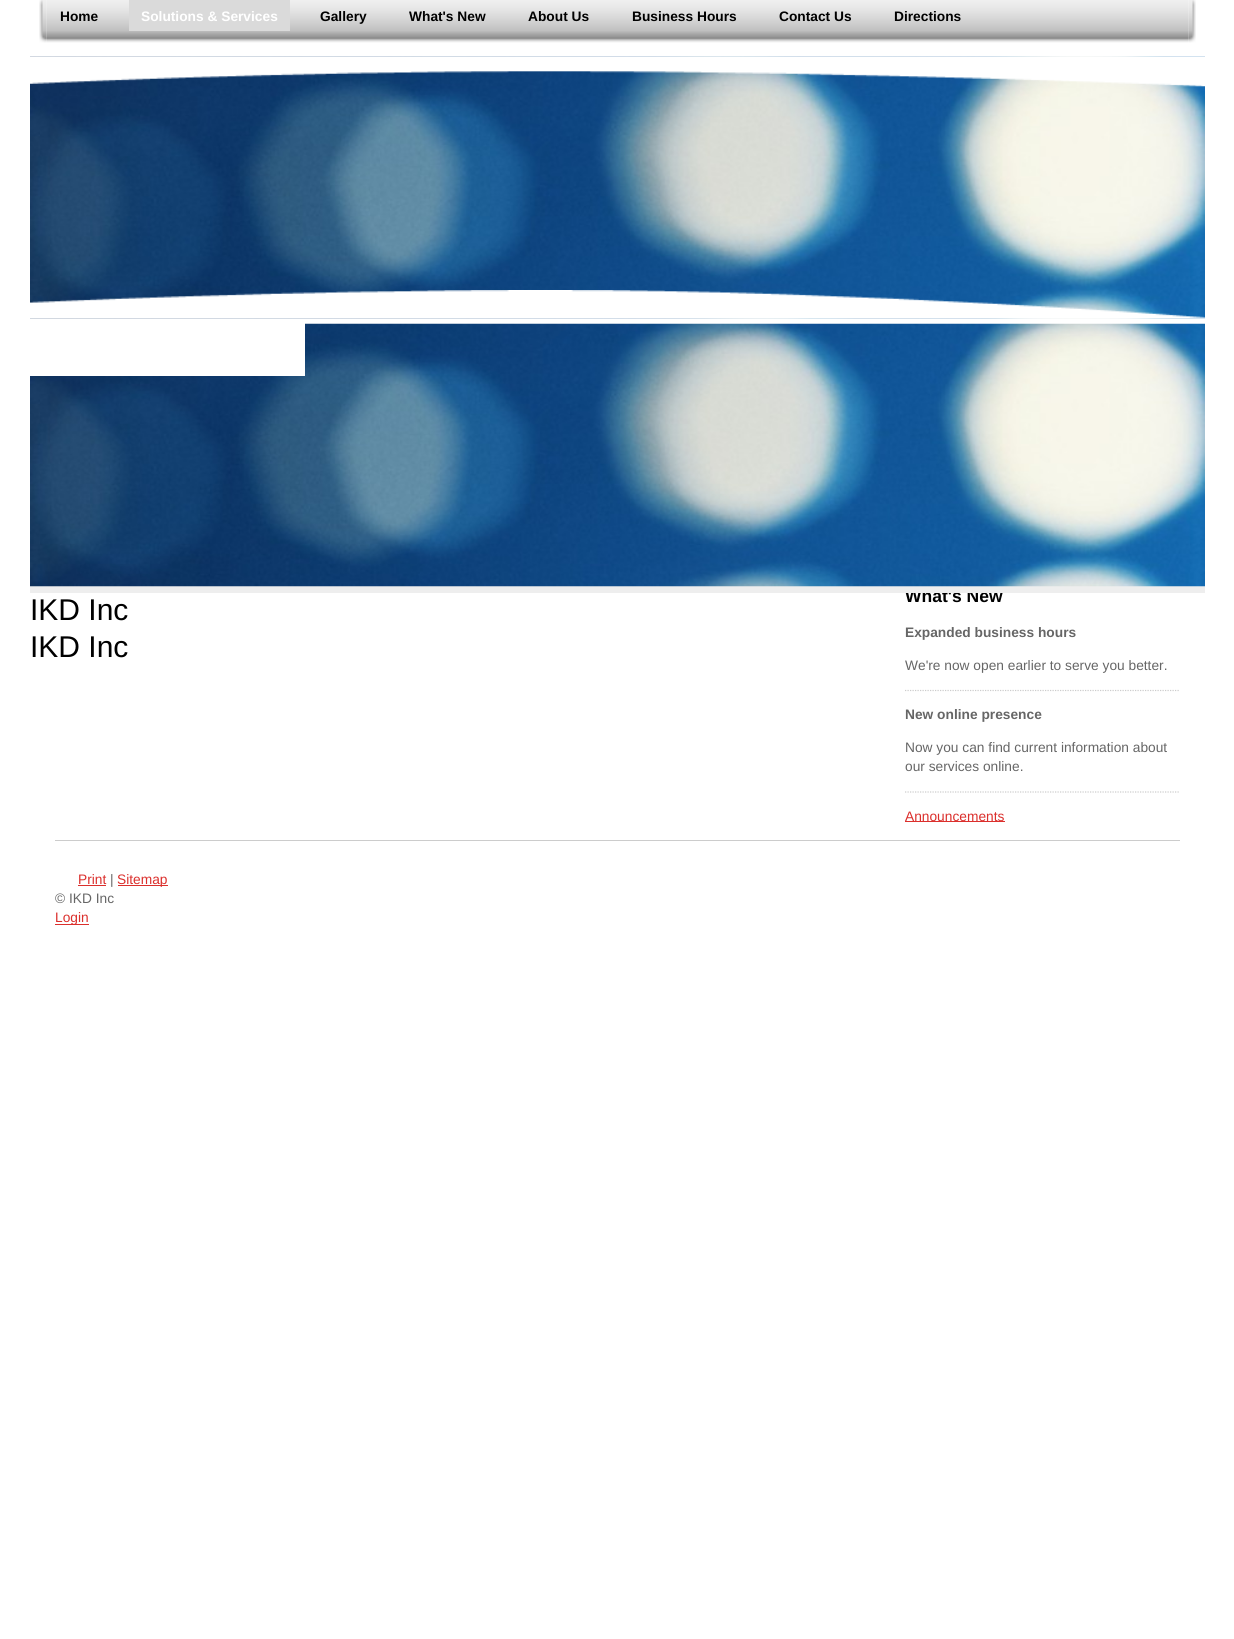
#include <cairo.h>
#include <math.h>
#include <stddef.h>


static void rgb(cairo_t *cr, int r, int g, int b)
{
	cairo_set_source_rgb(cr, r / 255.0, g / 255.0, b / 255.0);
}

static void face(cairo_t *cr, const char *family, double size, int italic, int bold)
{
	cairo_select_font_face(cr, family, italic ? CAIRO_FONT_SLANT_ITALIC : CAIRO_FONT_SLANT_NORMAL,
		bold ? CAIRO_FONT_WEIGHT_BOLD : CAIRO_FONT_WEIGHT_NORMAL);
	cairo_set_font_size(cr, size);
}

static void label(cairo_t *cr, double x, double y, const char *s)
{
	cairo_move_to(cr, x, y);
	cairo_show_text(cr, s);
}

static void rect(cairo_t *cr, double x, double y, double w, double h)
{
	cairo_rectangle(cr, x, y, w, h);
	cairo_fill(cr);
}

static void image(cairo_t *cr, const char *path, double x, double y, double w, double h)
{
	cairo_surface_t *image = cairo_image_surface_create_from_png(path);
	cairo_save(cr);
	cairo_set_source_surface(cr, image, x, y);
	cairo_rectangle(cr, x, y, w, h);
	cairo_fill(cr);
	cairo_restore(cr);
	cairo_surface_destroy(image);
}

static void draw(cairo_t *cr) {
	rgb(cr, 255, 255, 255);
	cairo_paint(cr);
	image(cr, "image0.png", 39, 0, 8, 43);
	image(cr, "image1.png", 46, 0, 1143, 43);
	face(cr, "Liberation Sans", 13.75, 0, 1);
	rgb(cr, 0, 0, 0);
	label(cr, 60, 21, "Home");
	rgb(cr, 218, 218, 218);
	rect(cr, 129, 0, 161, 31);
	rgb(cr, 255, 255, 255);
	label(cr, 141, 21, "Solutions & Services");
	rgb(cr, 0, 0, 0);
	label(cr, 320, 21, "Gallery");
	label(cr, 409, 21, "What's New");
	label(cr, 528, 21, "About Us");
	label(cr, 632, 21, "Business Hours");
	label(cr, 779, 21, "Contact Us");
	label(cr, 894, 21, "Directions");
	image(cr, "image2.png", 1188, 0, 8, 43);
	face(cr, "Liberation Sans", 17.5, 0, 1);
	label(cr, 905, 602, "What's New");
	rgb(cr, 238, 238, 238);
	rect(cr, 30, 586, 1175, 7);
	image(cr, "image6.png", 30, 323, 1175, 264);
	rgb(cr, 255, 255, 255);
	rect(cr, 30, 323, 275, 53);
	face(cr, "Liberation Sans", 13.75, 0, 1);
	rgb(cr, 102, 102, 102);
	label(cr, 905, 637, "Expanded business hours");
	face(cr, "Liberation Sans", 13.75, 0, 0);
	label(cr, 905, 670, "We're now open earlier to serve you better.");
	cairo_new_path(cr);
	cairo_move_to(cr, 905, 690.5);
	cairo_line_to(cr, 1180, 690.5);
	rgb(cr, 204, 204, 204);
	cairo_set_line_width(cr, 1.2);
	cairo_set_dash(cr, (double[]){1.25, 1.25}, 2, 0);
	cairo_stroke(cr);
	face(cr, "Liberation Sans", 13.75, 0, 1);
	rgb(cr, 102, 102, 102);
	label(cr, 905, 719, "New online presence");
	face(cr, "Liberation Sans", 13.75, 0, 0);
	label(cr, 905, 752, "Now you can find current information about");
	label(cr, 905, 771, "our services online.");
	cairo_new_path(cr);
	cairo_move_to(cr, 905, 792);
	cairo_line_to(cr, 1180, 792);
	rgb(cr, 204, 204, 204);
	cairo_stroke(cr);
	rgb(cr, 219, 47, 44);
	rect(cr, 905, 821, 100, 1);
	label(cr, 905, 821, "Announcements");
	rgb(cr, 204, 204, 204);
	rect(cr, 55, 840, 1125, 1);
	rgb(cr, 219, 47, 44);
	label(cr, 78, 884, "Print");
	rect(cr, 78, 885, 28, 1);
	rgb(cr, 102, 102, 102);
	label(cr, 110, 884, "|");
	rgb(cr, 219, 47, 44);
	rect(cr, 118, 885, 50, 1);
	label(cr, 117, 884, "Sitemap");
	rgb(cr, 102, 102, 102);
	label(cr, 55, 903, "© IKD Inc");
	rgb(cr, 219, 47, 44);
	rect(cr, 55, 924, 34, 1);
	label(cr, 55, 922, "Login");
	image(cr, "image5.png", 30, 56, 1175, 263);
	image(cr, "image3.png", 30, 56, 1175, 31);
	image(cr, "image4.png", 30, 290, 1175, 29);
	face(cr, "Liberation Sans", 30, 0, 0);
	rgb(cr, 0, 0, 0);
	label(cr, 30, 620, "IKD Inc");
	label(cr, 30, 657, "IKD Inc");
}

int main(void) {
	cairo_surface_t *surface = cairo_image_surface_create(CAIRO_FORMAT_RGB24, 1234, 1639);
	cairo_t *cr = cairo_create(surface);
	cairo_font_options_t *options = cairo_font_options_create();
	cairo_font_options_set_hint_metrics(options, CAIRO_HINT_METRICS_OFF);
	cairo_font_options_set_hint_style(options, CAIRO_HINT_STYLE_NONE);
	cairo_set_font_options(cr, options);
	cairo_set_miter_limit(cr, 4);
	draw(cr);
	cairo_surface_write_to_png(surface, "render.png");
	cairo_font_options_destroy(options);
	cairo_destroy(cr);
	cairo_surface_destroy(surface);
	return 0;
}
